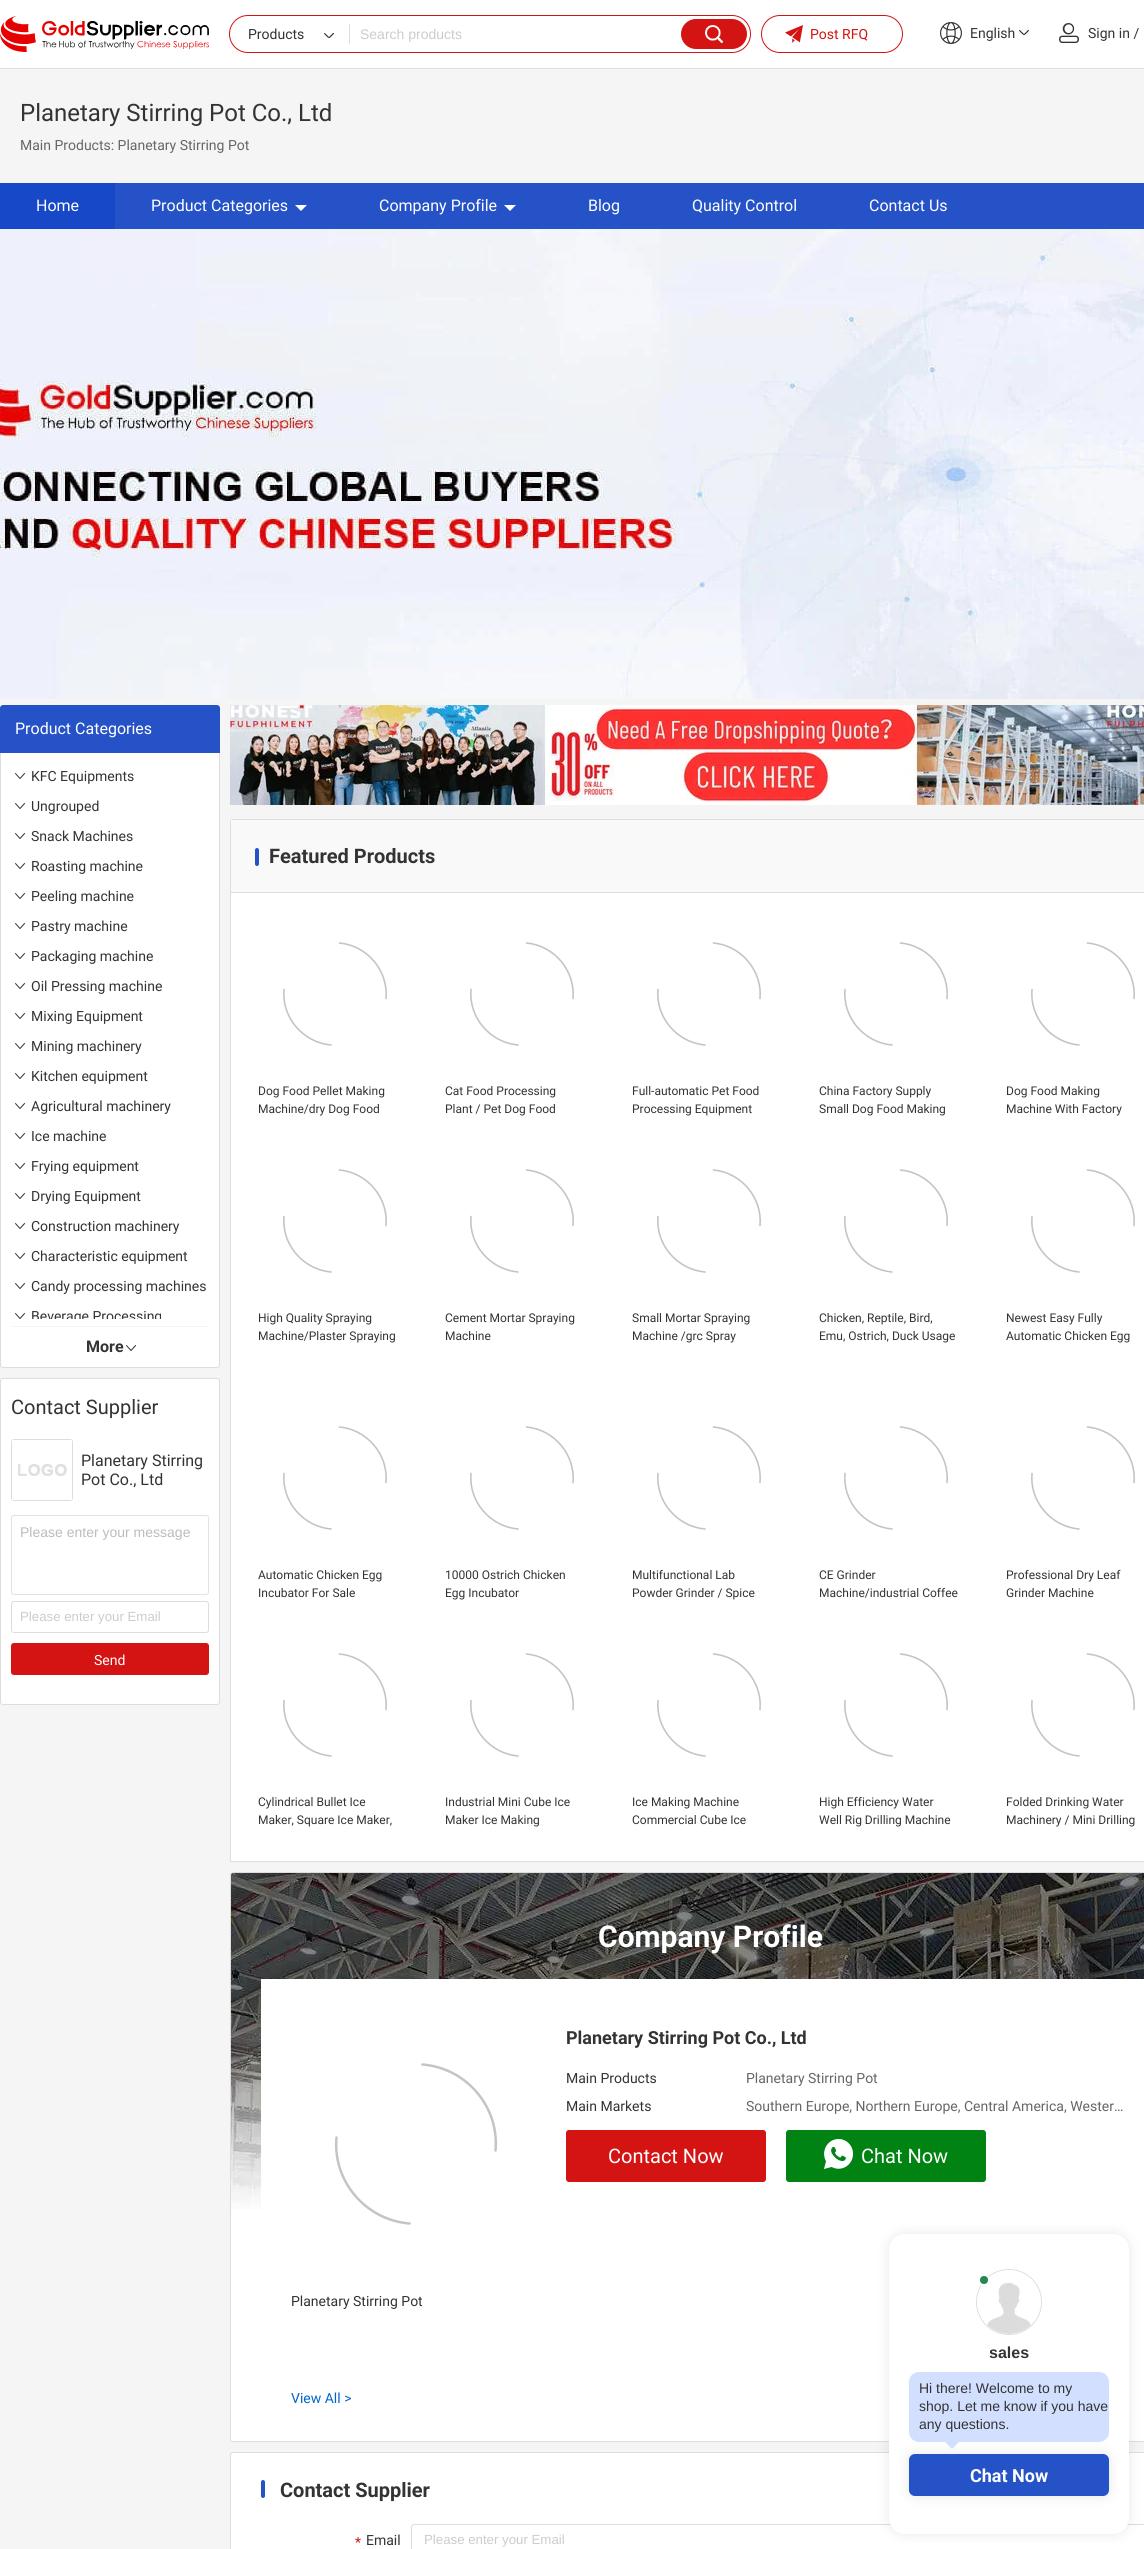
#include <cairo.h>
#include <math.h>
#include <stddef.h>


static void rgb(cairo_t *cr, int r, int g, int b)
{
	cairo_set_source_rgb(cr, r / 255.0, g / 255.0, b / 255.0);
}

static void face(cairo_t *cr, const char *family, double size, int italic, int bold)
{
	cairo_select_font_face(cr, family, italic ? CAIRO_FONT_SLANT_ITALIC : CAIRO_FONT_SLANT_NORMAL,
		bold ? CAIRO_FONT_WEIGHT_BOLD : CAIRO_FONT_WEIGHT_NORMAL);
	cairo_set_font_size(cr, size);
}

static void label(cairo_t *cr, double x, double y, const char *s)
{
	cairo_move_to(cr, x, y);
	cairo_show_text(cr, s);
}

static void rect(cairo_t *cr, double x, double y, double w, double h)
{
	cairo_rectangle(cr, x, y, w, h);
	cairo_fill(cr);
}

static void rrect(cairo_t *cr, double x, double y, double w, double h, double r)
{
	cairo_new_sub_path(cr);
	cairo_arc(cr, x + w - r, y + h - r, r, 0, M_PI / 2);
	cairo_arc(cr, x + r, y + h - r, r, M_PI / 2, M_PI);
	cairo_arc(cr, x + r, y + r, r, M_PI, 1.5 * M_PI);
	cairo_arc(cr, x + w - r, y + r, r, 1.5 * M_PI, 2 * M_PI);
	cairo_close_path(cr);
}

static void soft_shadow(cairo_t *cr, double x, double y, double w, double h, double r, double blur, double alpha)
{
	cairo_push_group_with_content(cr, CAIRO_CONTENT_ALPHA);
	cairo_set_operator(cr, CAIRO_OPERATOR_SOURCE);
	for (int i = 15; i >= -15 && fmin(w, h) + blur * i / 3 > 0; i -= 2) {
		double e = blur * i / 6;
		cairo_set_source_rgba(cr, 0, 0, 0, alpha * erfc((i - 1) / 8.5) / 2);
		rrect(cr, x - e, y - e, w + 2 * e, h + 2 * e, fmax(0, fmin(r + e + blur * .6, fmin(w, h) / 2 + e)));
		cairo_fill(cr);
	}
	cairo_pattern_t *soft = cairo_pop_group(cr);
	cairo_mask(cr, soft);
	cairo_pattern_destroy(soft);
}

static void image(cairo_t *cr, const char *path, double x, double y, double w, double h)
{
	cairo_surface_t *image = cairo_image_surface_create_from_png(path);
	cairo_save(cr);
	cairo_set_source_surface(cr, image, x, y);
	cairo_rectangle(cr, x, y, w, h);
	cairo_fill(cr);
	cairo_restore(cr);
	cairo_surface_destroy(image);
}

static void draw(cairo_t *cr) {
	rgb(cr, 255, 255, 255);
	cairo_paint(cr);
	rgb(cr, 220, 222, 227);
	rect(cr, 0, 68, 1144, 1);
	image(cr, "image0.png", 0, 16, 209, 36);
	rrect(cr, 229.5, 15.5, 521, 37, 18.5);
	rgb(cr, 212, 19, 19);
	cairo_set_line_width(cr, 1);
	cairo_stroke(cr);
	face(cr, "Roboto", 14, 0, 0);
	rgb(cr, 51, 51, 51);
	label(cr, 248, 39, "Products");
	image(cr, "image1.png", 324, 33, 10, 5);
	rgb(cr, 220, 222, 227);
	rect(cr, 349, 24, 1, 20);
	face(cr, "Liberation Sans", 14, 0, 0);
	rgb(cr, 204, 204, 204);
	label(cr, 360, 39, "Search products");
	rgb(cr, 212, 19, 19);
	rrect(cr, 681, 19, 66, 30, 15);
	cairo_fill(cr);
	image(cr, "image2.png", 705, 25, 18, 18);
	rrect(cr, 761.5, 15.5, 141, 37, 18.5);
	cairo_stroke(cr);
	image(cr, "image3.png", 785, 25, 18, 18);
	face(cr, "Roboto", 14, 0, 0);
	label(cr, 810, 39, "Post RFQ");
	image(cr, "image4.png", 940, 22, 22, 22);
	rgb(cr, 51, 51, 51);
	label(cr, 970, 38, "English");
	image(cr, "image1.png", 1019, 30, 10, 5);
	image(cr, "image5.png", 1059, 23, 20, 20);
	label(cr, 1088, 38, "Sign in /");
	rgb(cr, 245, 245, 245);
	rect(cr, 0, 69, 1144, 2480);
	face(cr, "Roboto", 24, 0, 0);
	rgb(cr, 51, 51, 51);
	label(cr, 20, 121, "Planetary Stirring Pot Co., Ltd");
	face(cr, "Roboto", 14, 0, 0);
	rgb(cr, 102, 102, 102);
	label(cr, 20, 150, "Main Products: Planetary Stirring Pot");
	rgb(cr, 37, 82, 199);
	rect(cr, 115, 183, 1029, 46);
	rgb(cr, 23, 72, 200);
	rect(cr, 0, 183, 115, 46);
	face(cr, "Roboto", 16, 0, 0);
	rgb(cr, 255, 255, 255);
	label(cr, 36, 211, "Home");
	label(cr, 151, 211, "Product Categories");
	image(cr, "image6.png", 295, 205, 12, 6);
	label(cr, 379, 211, "Company Profile");
	image(cr, "image6.png", 504, 205, 12, 6);
	label(cr, 588, 211, "Blog");
	label(cr, 692, 211, "Quality Control");
	label(cr, 869, 211, "Contact Us");
	image(cr, "image7.png", 0, 229, 1144, 470);
	rrect(cr, 0.5, 705.5, 219, 662, 2.5);
	cairo_fill_preserve(cr);
	rgb(cr, 221, 221, 221);
	cairo_stroke(cr);
	rgb(cr, 37, 82, 199);
	cairo_new_path(cr);
	cairo_move_to(cr, 3, 705);
	cairo_line_to(cr, 217, 705);
	cairo_curve_to(cr, 218.5, 705, 220, 706.5, 220, 708);
	cairo_line_to(cr, 220, 753);
	cairo_line_to(cr, 0, 753);
	cairo_line_to(cr, 0, 708);
	cairo_curve_to(cr, 0, 706.5, 1.5, 705, 3, 705);
	cairo_close_path(cr);
	cairo_fill(cr);
	rgb(cr, 255, 255, 255);
	label(cr, 15, 734, "Product Categories");
	image(cr, "image8.png", 15, 773, 10, 6);
	face(cr, "Roboto", 14, 0, 0);
	rgb(cr, 51, 51, 51);
	label(cr, 31, 781, "KFC Equipments");
	image(cr, "image8.png", 15, 803, 10, 6);
	label(cr, 31, 811, "Ungrouped");
	image(cr, "image8.png", 15, 833, 10, 6);
	label(cr, 31, 841, "Snack Machines");
	image(cr, "image8.png", 15, 863, 10, 6);
	label(cr, 31, 871, "Roasting machine");
	image(cr, "image8.png", 15, 893, 10, 6);
	label(cr, 31, 901, "Peeling machine");
	image(cr, "image8.png", 15, 923, 10, 6);
	label(cr, 31, 931, "Pastry machine");
	image(cr, "image8.png", 15, 953, 10, 6);
	label(cr, 31, 961, "Packaging machine");
	image(cr, "image8.png", 15, 983, 10, 6);
	label(cr, 31, 991, "Oil Pressing machine");
	image(cr, "image8.png", 15, 1013, 10, 6);
	label(cr, 31, 1021, "Mixing Equipment");
	image(cr, "image8.png", 15, 1043, 10, 6);
	label(cr, 31, 1051, "Mining machinery");
	image(cr, "image8.png", 15, 1073, 10, 6);
	label(cr, 31, 1081, "Kitchen equipment");
	image(cr, "image8.png", 15, 1103, 10, 6);
	label(cr, 31, 1111, "Agricultural machinery");
	image(cr, "image8.png", 15, 1133, 10, 6);
	label(cr, 31, 1141, "Ice machine");
	image(cr, "image8.png", 15, 1163, 10, 6);
	label(cr, 31, 1171, "Frying equipment");
	image(cr, "image8.png", 15, 1193, 10, 6);
	label(cr, 31, 1201, "Drying Equipment");
	image(cr, "image8.png", 15, 1223, 10, 6);
	label(cr, 31, 1231, "Construction machinery");
	image(cr, "image8.png", 15, 1253, 10, 6);
	label(cr, 31, 1261, "Characteristic equipment");
	image(cr, "image8.png", 15, 1283, 10, 6);
	label(cr, 31, 1291, "Candy processing machines");
	image(cr, "image8.png", 15, 1313, 10, 6);
	cairo_save(cr);
	cairo_rectangle(cr, 1, 761, 218, 558);
	cairo_clip(cr);
	label(cr, 31, 1321, "Beverage Processing");
	cairo_restore(cr);
	rgb(cr, 245, 245, 245);
	rect(cr, 11, 1326, 198, 1);
	face(cr, "Roboto", 16, 0, 1);
	rgb(cr, 51, 51, 51);
	label(cr, 86, 1352, "More");
	image(cr, "image8.png", 126, 1345, 10, 6);
	rgb(cr, 255, 255, 255);
	rrect(cr, 0.5, 1378.5, 219, 326, 2.5);
	cairo_fill_preserve(cr);
	rgb(cr, 221, 221, 221);
	cairo_stroke(cr);
	face(cr, "Roboto", 20, 0, 0);
	rgb(cr, 51, 51, 51);
	label(cr, 11, 1414, "Contact Supplier");
	rrect(cr, 11.5, 1439.5, 61, 61, 2.5);
	rgb(cr, 221, 221, 221);
	cairo_stroke(cr);
	image(cr, "image9.png", 12, 1440, 60, 60);
	face(cr, "Roboto", 16, 0, 0);
	rgb(cr, 51, 51, 51);
	label(cr, 81, 1466, "Planetary Stirring");
	label(cr, 81, 1485, "Pot Co., Ltd");
	rrect(cr, 11.5, 1515.5, 197, 79, 2.5);
	rgb(cr, 226, 226, 226);
	cairo_stroke(cr);
	face(cr, "Liberation Sans", 14, 0, 0);
	rgb(cr, 188, 188, 188);
	label(cr, 20, 1537, "Please enter your message");
	rrect(cr, 11.5, 1601.5, 197, 31, 2.5);
	rgb(cr, 221, 221, 221);
	cairo_stroke(cr);
	face(cr, "Liberation Sans", 13.25, 0, 0);
	rgb(cr, 204, 204, 204);
	label(cr, 20, 1621, "Please enter your Email");
	rgb(cr, 212, 19, 19);
	rrect(cr, 11.5, 1643.5, 197, 31, 2.5);
	cairo_fill_preserve(cr);
	cairo_stroke(cr);
	face(cr, "Roboto", 14, 0, 0);
	rgb(cr, 255, 255, 255);
	label(cr, 94, 1665, "Send");
	rrect(cr, 230, 1872, 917, 570, 3);
	cairo_fill(cr);
	image(cr, "image12.png", 231, 1873, 913, 336);
	rrect(cr, 230.5, 1872.5, 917, 569, 2.5);
	rgb(cr, 221, 221, 221);
	cairo_stroke(cr);
	rgb(cr, 255, 255, 255);
	rrect(cr, 230.5, 2452.5, 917, 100, 2.5);
	cairo_fill_preserve(cr);
	rgb(cr, 221, 221, 221);
	cairo_stroke(cr);
	rrect(cr, 411.5, 2524.5, 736, 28, 2.5);
	cairo_stroke(cr);
	rgb(cr, 0, 0, 0);
	soft_shadow(cr, 889, 2234, 240, 300, 16, 6.5, 0.1);
	rgb(cr, 255, 255, 255);
	rrect(cr, 889, 2234, 240, 300, 16);
	cairo_fill(cr);
	cairo_arc(cr, 1009, 2302, 32.5, 0, 2 * M_PI);
	rgb(cr, 221, 221, 221);
	cairo_stroke(cr);
	image(cr, "image10.png", 977, 2270, 64, 64);
	rgb(cr, 38, 135, 80);
	cairo_arc(cr, 984, 2280, 5, 0, 2 * M_PI);
	cairo_fill_preserve(cr);
	rgb(cr, 255, 255, 255);
	cairo_set_line_width(cr, 2);
	cairo_stroke(cr);
	face(cr, "Liberation Sans", 16, 0, 1);
	rgb(cr, 51, 51, 51);
	label(cr, 989, 2358, "sales");
	rgb(cr, 0, 0, 0);
	soft_shadow(cr, 909, 2454, 200, 42, 6, 6.5, 0.1);
	rgb(cr, 210, 223, 255);
	rrect(cr, 909, 2372, 200, 70, 10);
	cairo_fill(cr);
	face(cr, "Liberation Sans", 14, 0, 0);
	rgb(cr, 51, 51, 51);
	label(cr, 919, 2393, "Hi there! Welcome to my");
	label(cr, 919, 2411, "shop. Let me know if you have");
	label(cr, 919, 2429, "any questions.");
	rgb(cr, 210, 223, 255);
	cairo_new_path(cr);
	cairo_move_to(cr, 945, 2442);
	cairo_line_to(cr, 959, 2442);
	cairo_line_to(cr, 952, 2449);
	cairo_close_path(cr);
	cairo_fill(cr);
	rgb(cr, 37, 82, 199);
	rrect(cr, 909, 2454, 200, 42, 6);
	cairo_fill(cr);
	face(cr, "Roboto", 18, 0, 1);
	rgb(cr, 255, 255, 255);
	label(cr, 970, 2482, "Chat Now");
	image(cr, "image11.png", 230, 705, 914, 100);
	cairo_new_path(cr);
	cairo_move_to(cr, 233, 819.5);
	cairo_line_to(cr, 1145, 819.5);
	cairo_curve_to(cr, 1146.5, 819.5, 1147.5, 820.5, 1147.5, 822);
	cairo_line_to(cr, 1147.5, 1861.5);
	cairo_line_to(cr, 230.5, 1861.5);
	cairo_line_to(cr, 230.5, 822);
	cairo_curve_to(cr, 230.5, 820.5, 231.5, 819.5, 233, 819.5);
	cairo_close_path(cr);
	cairo_fill_preserve(cr);
	rgb(cr, 221, 221, 221);
	cairo_set_line_width(cr, 1);
	cairo_stroke(cr);
	rgb(cr, 249, 249, 249);
	rect(cr, 231, 820, 913, 72);
	rgb(cr, 221, 221, 221);
	rect(cr, 231, 892, 913, 1);
	rgb(cr, 37, 82, 199);
	rrect(cr, 255, 848, 4, 18, 2);
	cairo_fill(cr);
	face(cr, "Roboto", 20, 0, 1);
	rgb(cr, 51, 51, 51);
	label(cr, 269, 863, "Featured Products");
	cairo_new_path(cr);
	cairo_move_to(cr, 331, 1045);
	cairo_curve_to(cr, 303, 1042.5, 281.5, 1017.5, 284, 989.5);
	cairo_move_to(cr, 339.5, 943);
	cairo_curve_to(cr, 367, 945.5, 388.5, 970.5, 386, 998.5);
	rgb(cr, 196, 196, 196);
	cairo_set_line_width(cr, 1.6);
	cairo_set_line_cap(cr, CAIRO_LINE_CAP_ROUND);
	cairo_stroke(cr);
	face(cr, "Roboto", 12, 0, 0);
	rgb(cr, 51, 51, 51);
	label(cr, 258, 1095, "Dog Food Pellet Making");
	label(cr, 258, 1113, "Machine/dry Dog Food");
	cairo_new_path(cr);
	cairo_move_to(cr, 518, 1045);
	cairo_curve_to(cr, 490, 1042.5, 468.5, 1017.5, 471, 989.5);
	cairo_move_to(cr, 526.5, 943);
	cairo_curve_to(cr, 554, 945.5, 575.5, 970.5, 573, 998.5);
	rgb(cr, 196, 196, 196);
	cairo_stroke(cr);
	rgb(cr, 51, 51, 51);
	label(cr, 445, 1095, "Cat Food Processing");
	label(cr, 445, 1113, "Plant / Pet Dog Food");
	cairo_new_path(cr);
	cairo_move_to(cr, 705, 1045);
	cairo_curve_to(cr, 677, 1042.5, 655.5, 1017.5, 658, 989.5);
	cairo_move_to(cr, 713.5, 943);
	cairo_curve_to(cr, 741, 945.5, 762.5, 970.5, 760, 998.5);
	rgb(cr, 196, 196, 196);
	cairo_stroke(cr);
	rgb(cr, 51, 51, 51);
	label(cr, 632, 1095, "Full-automatic Pet Food");
	label(cr, 632, 1113, "Processing Equipment");
	cairo_new_path(cr);
	cairo_move_to(cr, 892, 1045);
	cairo_curve_to(cr, 864, 1042.5, 842.5, 1017.5, 845, 989.5);
	cairo_move_to(cr, 900.5, 943);
	cairo_curve_to(cr, 928, 945.5, 949.5, 970.5, 947, 998.5);
	rgb(cr, 196, 196, 196);
	cairo_stroke(cr);
	rgb(cr, 51, 51, 51);
	label(cr, 819, 1095, "China Factory Supply");
	label(cr, 819, 1113, "Small Dog Food Making");
	cairo_new_path(cr);
	cairo_move_to(cr, 1079, 1045);
	cairo_curve_to(cr, 1051, 1042.5, 1029.5, 1017.5, 1032, 989.5);
	cairo_move_to(cr, 1087.5, 943);
	cairo_curve_to(cr, 1115, 945.5, 1136.5, 970.5, 1134, 998.5);
	rgb(cr, 196, 196, 196);
	cairo_stroke(cr);
	rgb(cr, 51, 51, 51);
	label(cr, 1006, 1095, "Dog Food Making");
	label(cr, 1006, 1113, "Machine With Factory");
	cairo_new_path(cr);
	cairo_move_to(cr, 331, 1272);
	cairo_curve_to(cr, 303, 1269.5, 281.5, 1244.5, 284, 1216.5);
	cairo_move_to(cr, 339.5, 1170);
	cairo_curve_to(cr, 367, 1172.5, 388.5, 1197.5, 386, 1225.5);
	rgb(cr, 196, 196, 196);
	cairo_stroke(cr);
	rgb(cr, 51, 51, 51);
	label(cr, 258, 1322, "High Quality Spraying");
	label(cr, 258, 1340, "Machine/Plaster Spraying");
	cairo_new_path(cr);
	cairo_move_to(cr, 518, 1272);
	cairo_curve_to(cr, 490, 1269.5, 468.5, 1244.5, 471, 1216.5);
	cairo_move_to(cr, 526.5, 1170);
	cairo_curve_to(cr, 554, 1172.5, 575.5, 1197.5, 573, 1225.5);
	rgb(cr, 196, 196, 196);
	cairo_stroke(cr);
	rgb(cr, 51, 51, 51);
	label(cr, 445, 1322, "Cement Mortar Spraying");
	label(cr, 445, 1340, "Machine");
	cairo_new_path(cr);
	cairo_move_to(cr, 705, 1272);
	cairo_curve_to(cr, 677, 1269.5, 655.5, 1244.5, 658, 1216.5);
	cairo_move_to(cr, 713.5, 1170);
	cairo_curve_to(cr, 741, 1172.5, 762.5, 1197.5, 760, 1225.5);
	rgb(cr, 196, 196, 196);
	cairo_stroke(cr);
	rgb(cr, 51, 51, 51);
	label(cr, 632, 1322, "Small Mortar Spraying");
	label(cr, 632, 1340, "Machine /grc Spray");
	cairo_new_path(cr);
	cairo_move_to(cr, 892, 1272);
	cairo_curve_to(cr, 864, 1269.5, 842.5, 1244.5, 845, 1216.5);
	cairo_move_to(cr, 900.5, 1170);
	cairo_curve_to(cr, 928, 1172.5, 949.5, 1197.5, 947, 1225.5);
	rgb(cr, 196, 196, 196);
	cairo_stroke(cr);
	rgb(cr, 51, 51, 51);
	label(cr, 819, 1322, "Chicken, Reptile, Bird,");
	label(cr, 819, 1340, "Emu, Ostrich, Duck Usage");
	cairo_new_path(cr);
	cairo_move_to(cr, 1079, 1272);
	cairo_curve_to(cr, 1051, 1269.5, 1029.5, 1244.5, 1032, 1216.5);
	cairo_move_to(cr, 1087.5, 1170);
	cairo_curve_to(cr, 1115, 1172.5, 1136.5, 1197.5, 1134, 1225.5);
	rgb(cr, 196, 196, 196);
	cairo_stroke(cr);
	rgb(cr, 51, 51, 51);
	label(cr, 1006, 1322, "Newest Easy Fully");
	label(cr, 1006, 1340, "Automatic Chicken Egg");
	cairo_new_path(cr);
	cairo_move_to(cr, 331, 1529);
	cairo_curve_to(cr, 303, 1526.5, 281.5, 1501.5, 284, 1473.5);
	cairo_move_to(cr, 339.5, 1427);
	cairo_curve_to(cr, 367, 1429.5, 388.5, 1454.5, 386, 1482.5);
	rgb(cr, 196, 196, 196);
	cairo_stroke(cr);
	rgb(cr, 51, 51, 51);
	label(cr, 258, 1579, "Automatic Chicken Egg");
	label(cr, 258, 1597, "Incubator For Sale");
	cairo_new_path(cr);
	cairo_move_to(cr, 518, 1529);
	cairo_curve_to(cr, 490, 1526.5, 468.5, 1501.5, 471, 1473.5);
	cairo_move_to(cr, 526.5, 1427);
	cairo_curve_to(cr, 554, 1429.5, 575.5, 1454.5, 573, 1482.5);
	rgb(cr, 196, 196, 196);
	cairo_stroke(cr);
	rgb(cr, 51, 51, 51);
	label(cr, 445, 1579, "10000 Ostrich Chicken");
	label(cr, 445, 1597, "Egg Incubator");
	cairo_new_path(cr);
	cairo_move_to(cr, 705, 1529);
	cairo_curve_to(cr, 677, 1526.5, 655.5, 1501.5, 658, 1473.5);
	cairo_move_to(cr, 713.5, 1427);
	cairo_curve_to(cr, 741, 1429.5, 762.5, 1454.5, 760, 1482.5);
	rgb(cr, 196, 196, 196);
	cairo_stroke(cr);
	rgb(cr, 51, 51, 51);
	label(cr, 632, 1579, "Multifunctional Lab");
	label(cr, 632, 1597, "Powder Grinder / Spice");
	cairo_new_path(cr);
	cairo_move_to(cr, 892, 1529);
	cairo_curve_to(cr, 864, 1526.5, 842.5, 1501.5, 845, 1473.5);
	cairo_move_to(cr, 900.5, 1427);
	cairo_curve_to(cr, 928, 1429.5, 949.5, 1454.5, 947, 1482.5);
	rgb(cr, 196, 196, 196);
	cairo_stroke(cr);
	rgb(cr, 51, 51, 51);
	label(cr, 819, 1579, "CE Grinder");
	label(cr, 819, 1597, "Machine/industrial Coffee");
	cairo_new_path(cr);
	cairo_move_to(cr, 1079, 1529);
	cairo_curve_to(cr, 1051, 1526.5, 1029.5, 1501.5, 1032, 1473.5);
	cairo_move_to(cr, 1087.5, 1427);
	cairo_curve_to(cr, 1115, 1429.5, 1136.5, 1454.5, 1134, 1482.5);
	rgb(cr, 196, 196, 196);
	cairo_stroke(cr);
	rgb(cr, 51, 51, 51);
	label(cr, 1006, 1579, "Professional Dry Leaf");
	label(cr, 1006, 1597, "Grinder Machine");
	cairo_new_path(cr);
	cairo_move_to(cr, 331, 1756);
	cairo_curve_to(cr, 303, 1753.5, 281.5, 1728.5, 284, 1700.5);
	cairo_move_to(cr, 339.5, 1654);
	cairo_curve_to(cr, 367, 1656.5, 388.5, 1681.5, 386, 1709.5);
	rgb(cr, 196, 196, 196);
	cairo_stroke(cr);
	rgb(cr, 51, 51, 51);
	label(cr, 258, 1806, "Cylindrical Bullet Ice");
	label(cr, 258, 1824, "Maker, Square Ice Maker,");
	cairo_new_path(cr);
	cairo_move_to(cr, 518, 1756);
	cairo_curve_to(cr, 490, 1753.5, 468.5, 1728.5, 471, 1700.5);
	cairo_move_to(cr, 526.5, 1654);
	cairo_curve_to(cr, 554, 1656.5, 575.5, 1681.5, 573, 1709.5);
	rgb(cr, 196, 196, 196);
	cairo_stroke(cr);
	rgb(cr, 51, 51, 51);
	label(cr, 445, 1806, "Industrial Mini Cube Ice");
	label(cr, 445, 1824, "Maker Ice Making");
	cairo_new_path(cr);
	cairo_move_to(cr, 705, 1756);
	cairo_curve_to(cr, 677, 1753.5, 655.5, 1728.5, 658, 1700.5);
	cairo_move_to(cr, 713.5, 1654);
	cairo_curve_to(cr, 741, 1656.5, 762.5, 1681.5, 760, 1709.5);
	rgb(cr, 196, 196, 196);
	cairo_stroke(cr);
	rgb(cr, 51, 51, 51);
	label(cr, 632, 1806, "Ice Making Machine");
	label(cr, 632, 1824, "Commercial Cube Ice");
	cairo_new_path(cr);
	cairo_move_to(cr, 892, 1756);
	cairo_curve_to(cr, 864, 1753.5, 842.5, 1728.5, 845, 1700.5);
	cairo_move_to(cr, 900.5, 1654);
	cairo_curve_to(cr, 928, 1656.5, 949.5, 1681.5, 947, 1709.5);
	rgb(cr, 196, 196, 196);
	cairo_stroke(cr);
	rgb(cr, 51, 51, 51);
	label(cr, 819, 1806, "High Efficiency Water");
	label(cr, 819, 1824, "Well Rig Drilling Machine");
	cairo_new_path(cr);
	cairo_move_to(cr, 1079, 1756);
	cairo_curve_to(cr, 1051, 1753.5, 1029.5, 1728.5, 1032, 1700.5);
	cairo_move_to(cr, 1087.5, 1654);
	cairo_curve_to(cr, 1115, 1656.5, 1136.5, 1681.5, 1134, 1709.5);
	rgb(cr, 196, 196, 196);
	cairo_stroke(cr);
	rgb(cr, 51, 51, 51);
	label(cr, 1006, 1806, "Folded Drinking Water");
	label(cr, 1006, 1824, "Machinery / Mini Drilling");
	face(cr, "Roboto", 30, 0, 1);
	rgb(cr, 255, 255, 255);
	label(cr, 598, 1947, "Company Profile");
	rect(cr, 261, 1979, 883, 230);
	cairo_new_path(cr);
	cairo_move_to(cr, 409.5, 2223.5);
	cairo_curve_to(cr, 365.5, 2220, 332.5, 2181, 336.5, 2137.5);
	cairo_move_to(cr, 422.5, 2064.5);
	cairo_curve_to(cr, 466.5, 2068, 499.5, 2107, 495.5, 2150.5);
	rgb(cr, 196, 196, 196);
	cairo_set_line_width(cr, 2.5);
	cairo_stroke(cr);
	face(cr, "Roboto", 18, 0, 1);
	rgb(cr, 51, 51, 51);
	label(cr, 566, 2044, "Planetary Stirring Pot Co., Ltd");
	face(cr, "Roboto", 14, 0, 0);
	label(cr, 566, 2083, "Main Products");
	rgb(cr, 102, 102, 102);
	label(cr, 746, 2083, "Planetary Stirring Pot");
	rgb(cr, 51, 51, 51);
	label(cr, 566, 2111, "Main Markets");
	rgb(cr, 102, 102, 102);
	label(cr, 746, 2111, "Southern Europe, Northern Europe, Central America, Wester…");
	rgb(cr, 212, 19, 19);
	rrect(cr, 566.5, 2130.5, 199, 51, 2.5);
	cairo_fill_preserve(cr);
	cairo_set_line_width(cr, 1);
	cairo_set_line_cap(cr, CAIRO_LINE_CAP_BUTT);
	cairo_stroke(cr);
	face(cr, "Roboto", 20, 0, 0);
	rgb(cr, 255, 255, 255);
	label(cr, 608, 2163, "Contact Now");
	rgb(cr, 0, 131, 18);
	rrect(cr, 786, 2130, 200, 52, 3);
	cairo_fill(cr);
	image(cr, "image13.png", 824, 2139, 29, 30);
	rgb(cr, 255, 255, 255);
	label(cr, 861, 2163, "Chat Now");
	face(cr, "Roboto", 14, 0, 0);
	rgb(cr, 51, 51, 51);
	label(cr, 291, 2306, "Planetary Stirring Pot");
	rgb(cr, 0, 102, 204);
	label(cr, 291, 2403, "View All >");
	rgb(cr, 37, 82, 199);
	rrect(cr, 261, 2480, 4, 18, 2);
	cairo_fill(cr);
	face(cr, "Roboto", 20, 0, 1);
	rgb(cr, 51, 51, 51);
	label(cr, 280, 2497, "Contact Supplier");
	face(cr, "Roboto", 14, 0, 0);
	rgb(cr, 212, 19, 19);
	label(cr, 355, 2547, "*");
	rgb(cr, 51, 51, 51);
	label(cr, 366, 2545, "Email");
	face(cr, "Liberation Sans", 13.25, 0, 0);
	rgb(cr, 204, 204, 204);
	label(cr, 424, 2544, "Please enter your Email");
}

int main(void) {
	cairo_surface_t *surface = cairo_image_surface_create(CAIRO_FORMAT_RGB24, 1144, 2549);
	cairo_t *cr = cairo_create(surface);
	cairo_font_options_t *options = cairo_font_options_create();
	cairo_font_options_set_hint_metrics(options, CAIRO_HINT_METRICS_OFF);
	cairo_font_options_set_hint_style(options, CAIRO_HINT_STYLE_NONE);
	cairo_set_font_options(cr, options);
	cairo_set_miter_limit(cr, 4);
	draw(cr);
	cairo_surface_write_to_png(surface, "render.png");
	cairo_font_options_destroy(options);
	cairo_destroy(cr);
	cairo_surface_destroy(surface);
	return 0;
}
